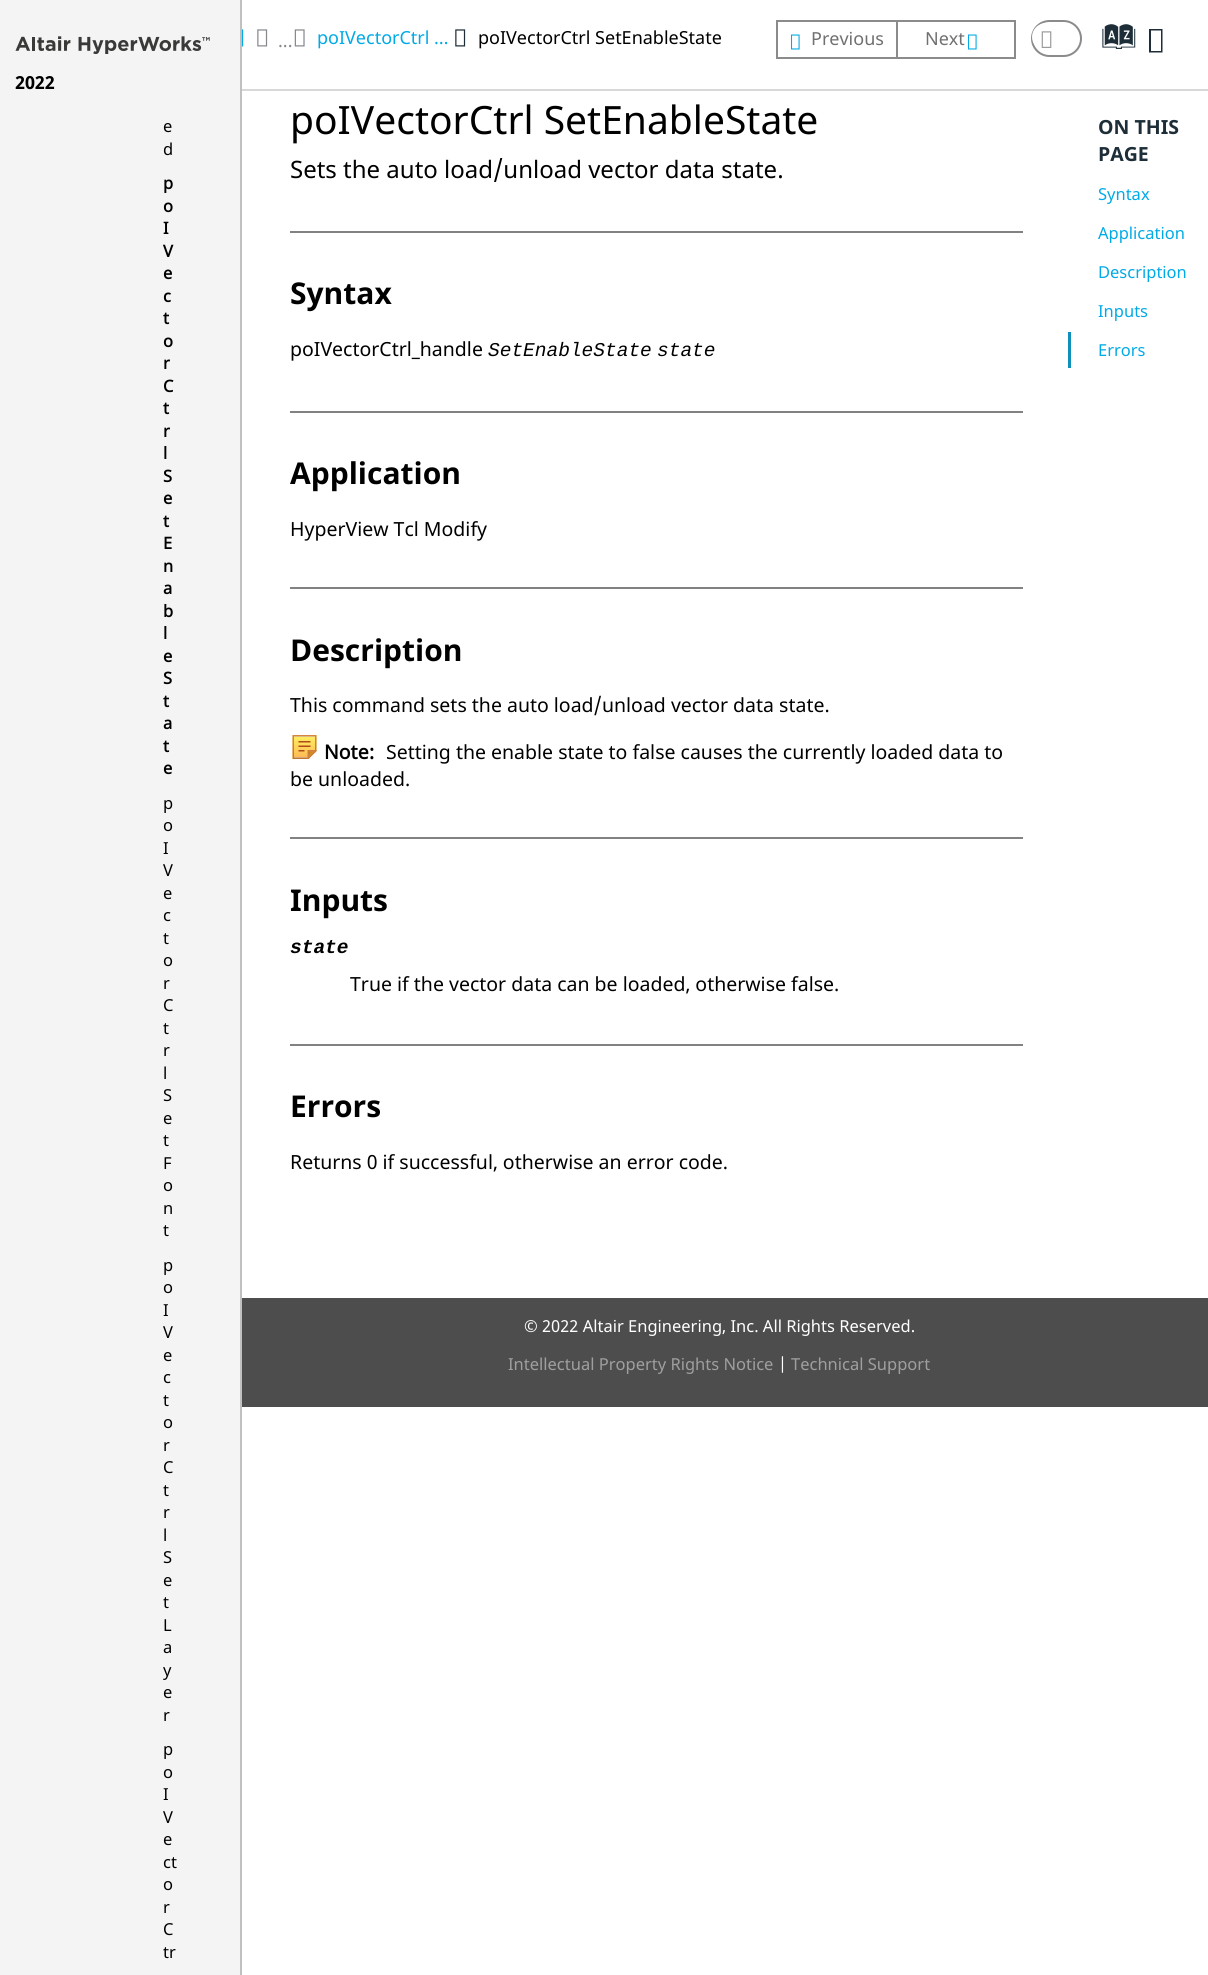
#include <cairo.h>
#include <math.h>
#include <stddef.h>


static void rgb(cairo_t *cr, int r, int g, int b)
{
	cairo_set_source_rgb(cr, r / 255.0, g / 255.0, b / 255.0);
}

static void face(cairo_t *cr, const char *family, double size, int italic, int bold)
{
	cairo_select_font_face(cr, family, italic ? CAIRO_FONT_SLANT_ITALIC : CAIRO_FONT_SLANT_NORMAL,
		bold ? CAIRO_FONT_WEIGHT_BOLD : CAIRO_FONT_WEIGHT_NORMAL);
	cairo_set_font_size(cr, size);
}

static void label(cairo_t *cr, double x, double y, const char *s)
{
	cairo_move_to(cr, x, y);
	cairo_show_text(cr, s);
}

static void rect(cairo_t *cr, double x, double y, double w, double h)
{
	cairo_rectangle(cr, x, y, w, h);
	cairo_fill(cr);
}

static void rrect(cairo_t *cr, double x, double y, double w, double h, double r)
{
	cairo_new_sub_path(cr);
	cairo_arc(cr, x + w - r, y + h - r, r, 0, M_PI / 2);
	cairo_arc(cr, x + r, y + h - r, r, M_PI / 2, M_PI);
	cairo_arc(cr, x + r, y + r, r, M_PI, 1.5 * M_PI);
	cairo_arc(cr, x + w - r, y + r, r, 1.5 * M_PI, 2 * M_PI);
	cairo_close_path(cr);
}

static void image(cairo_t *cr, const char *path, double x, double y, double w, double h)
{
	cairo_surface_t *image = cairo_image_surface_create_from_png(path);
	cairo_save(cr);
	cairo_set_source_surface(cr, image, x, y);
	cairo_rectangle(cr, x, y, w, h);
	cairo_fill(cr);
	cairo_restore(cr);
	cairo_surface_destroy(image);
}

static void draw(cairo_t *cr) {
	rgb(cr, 255, 255, 255);
	cairo_paint(cr);
	rgb(cr, 244, 244, 244);
	rect(cr, 0, 0, 240, 1975);
	rgb(cr, 192, 192, 192);
	rect(cr, 240, 0, 2, 1975);
	image(cr, "image0.png", 15, 36, 195, 18);
	face(cr, "Noto Sans", 18, 0, 1);
	rgb(cr, 0, 0, 0);
	label(cr, 15, 89, "2022");
	face(cr, "Noto Sans", 16.5, 0, 0);
	label(cr, 163, 132, "e");
	label(cr, 163, 155, "d");
	face(cr, "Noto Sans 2", 16.5, 0, 1);
	label(cr, 163, 189, "p");
	label(cr, 163, 212, "o");
	label(cr, 163, 234, "I");
	label(cr, 163, 257, "V");
	label(cr, 163, 279, "e");
	label(cr, 163, 302, "c");
	label(cr, 163, 324, "t");
	label(cr, 163, 347, "o");
	label(cr, 163, 369, "r");
	label(cr, 163, 392, "C");
	label(cr, 163, 414, "t");
	label(cr, 163, 437, "r");
	label(cr, 163, 459, "l");
	label(cr, 163, 482, "S");
	label(cr, 163, 504, "e");
	label(cr, 163, 527, "t");
	label(cr, 163, 549, "E");
	label(cr, 163, 572, "n");
	label(cr, 163, 594, "a");
	label(cr, 163, 617, "b");
	label(cr, 163, 639, "l");
	label(cr, 163, 662, "e");
	label(cr, 163, 684, "S");
	label(cr, 163, 707, "t");
	label(cr, 163, 729, "a");
	label(cr, 163, 752, "t");
	label(cr, 163, 774, "e");
	face(cr, "Noto Sans", 16.5, 0, 0);
	label(cr, 163, 809, "p");
	label(cr, 163, 831, "o");
	label(cr, 163, 854, "I");
	label(cr, 163, 876, "V");
	label(cr, 163, 899, "e");
	label(cr, 163, 921, "c");
	label(cr, 163, 944, "t");
	label(cr, 163, 966, "o");
	label(cr, 163, 989, "r");
	label(cr, 163, 1011, "C");
	label(cr, 163, 1034, "t");
	label(cr, 163, 1056, "r");
	label(cr, 163, 1079, "l");
	label(cr, 163, 1101, "S");
	label(cr, 163, 1124, "e");
	label(cr, 163, 1146, "t");
	label(cr, 163, 1169, "F");
	label(cr, 163, 1191, "o");
	label(cr, 163, 1214, "n");
	label(cr, 163, 1236, "t");
	label(cr, 163, 1271, "p");
	label(cr, 163, 1293, "o");
	label(cr, 163, 1316, "I");
	label(cr, 163, 1338, "V");
	label(cr, 163, 1361, "e");
	label(cr, 163, 1383, "c");
	label(cr, 163, 1406, "t");
	label(cr, 163, 1428, "o");
	label(cr, 163, 1451, "r");
	label(cr, 163, 1473, "C");
	label(cr, 163, 1496, "t");
	label(cr, 163, 1518, "r");
	label(cr, 163, 1541, "l");
	label(cr, 163, 1563, "S");
	label(cr, 163, 1586, "e");
	label(cr, 163, 1608, "t");
	label(cr, 163, 1631, "L");
	label(cr, 163, 1653, "a");
	label(cr, 163, 1676, "y");
	label(cr, 163, 1698, "e");
	label(cr, 163, 1721, "r");
	label(cr, 163, 1755, "p");
	label(cr, 163, 1778, "o");
	label(cr, 163, 1800, "I");
	label(cr, 163, 1823, "V");
	label(cr, 163, 1845, "e");
	label(cr, 163, 1868, "ct");
	label(cr, 163, 1890, "o");
	label(cr, 163, 1913, "r");
	label(cr, 163, 1935, "C");
	label(cr, 163, 1958, "tr");
	rgb(cr, 216, 216, 216);
	rect(cr, 242, 89, 966, 2);
	image(cr, "image1.png", 242, 29, 2, 18);
	image(cr, "image2.png", 257, 29, 11, 18);
	face(cr, "Noto Sans", 18, 0, 0);
	rgb(cr, 133, 137, 141);
	label(cr, 278, 47, "...");
	image(cr, "image3.png", 294, 29, 11, 18);
	rgb(cr, 0, 170, 230);
	label(cr, 317, 44, "poIVectorCtrl …");
	image(cr, "image4.png", 455, 29, 11, 18);
	rgb(cr, 0, 0, 0);
	label(cr, 478, 44, "poIVectorCtrl SetEnableState");
	rgb(cr, 139, 139, 139);
	rect(cr, 776, 20, 120, 2);
	rect(cr, 776, 57, 120, 2);
	rect(cr, 776, 20, 2, 39);
	image(cr, "image5.png", 790, 34, 10, 16);
	rgb(cr, 112, 112, 112);
	label(cr, 811, 45, "Previous");
	cairo_rectangle(cr, 897, 21, 118, 37);
	rgb(cr, 139, 139, 139);
	cairo_stroke(cr);
	rgb(cr, 112, 112, 112);
	label(cr, 925, 45, "Next");
	image(cr, "image5.png", 967, 34, 10, 16);
	rrect(cr, 1032, 21, 49, 35, 17.5);
	rgb(cr, 139, 139, 139);
	cairo_stroke(cr);
	rgb(cr, 255, 255, 255);
	rrect(cr, 1032, 23, 30, 28, 14);
	cairo_fill(cr);
	image(cr, "image6.png", 1041, 31, 11, 17);
	face(cr, "Oxygen", 35, 0, 0);
	rgb(cr, 29, 46, 56);
	label(cr, 1106, 53, "a");
	cairo_new_path(cr);
	cairo_move_to(cr, 1149, 52.5);
	cairo_line_to(cr, 1149, 29);
	cairo_line_to(cr, 1162.5, 29);
	cairo_line_to(cr, 1162.5, 52.5);
	cairo_close_path(cr);
	cairo_move_to(cr, 1151, 51);
	cairo_line_to(cr, 1161, 51);
	cairo_line_to(cr, 1161, 30.5);
	cairo_line_to(cr, 1151, 30.5);
	cairo_close_path(cr);
	cairo_fill(cr);
	face(cr, "Noto Sans", 39, 0, 0);
	rgb(cr, 0, 0, 0);
	label(cr, 290, 134, "poIVectorCtrl SetEnableState");
	face(cr, "Noto Sans", 24, 0, 0);
	label(cr, 290, 178, "Sets the auto load/unload vector data state.");
	rgb(cr, 130, 130, 130);
	rect(cr, 290, 231, 733, 2);
	face(cr, "Noto Sans", 30, 0, 1);
	rgb(cr, 0, 0, 0);
	label(cr, 290, 304, "Syntax");
	face(cr, "Noto Sans", 19.5, 0, 0);
	label(cr, 290, 356, "poIVectorCtrl_handle");
	face(cr, "Liberation Mono", 19.5, 1, 0);
	label(cr, 488, 356, "SetEnableState");
	label(cr, 657, 356, "state");
	rgb(cr, 130, 130, 130);
	rect(cr, 290, 411, 733, 2);
	face(cr, "Noto Sans", 30, 0, 1);
	rgb(cr, 0, 0, 0);
	label(cr, 290, 484, "Application");
	face(cr, "Noto Sans", 19.5, 0, 0);
	label(cr, 290, 536, "HyperView Tcl Modify");
	rgb(cr, 130, 130, 130);
	rect(cr, 290, 587, 733, 2);
	face(cr, "Noto Sans", 30, 0, 1);
	rgb(cr, 0, 0, 0);
	label(cr, 290, 661, "Description");
	face(cr, "Noto Sans", 19.5, 0, 0);
	label(cr, 290, 712, "This command sets the auto load/unload vector data state.");
	image(cr, "image7.png", 292, 735, 25, 24);
	face(cr, "Noto Sans 2", 19.5, 0, 1);
	label(cr, 324, 759, "Note:");
	face(cr, "Noto Sans", 19.5, 0, 0);
	label(cr, 386, 759, "Setting the enable state to false causes the currently loaded data to");
	label(cr, 290, 786, "be unloaded.");
	rgb(cr, 130, 130, 130);
	rect(cr, 290, 837, 733, 2);
	face(cr, "Noto Sans", 30, 0, 1);
	rgb(cr, 0, 0, 0);
	label(cr, 290, 911, "Inputs");
	face(cr, "Liberation Mono", 19.5, 1, 1);
	label(cr, 290, 953, "state");
	face(cr, "Noto Sans", 19.5, 0, 0);
	label(cr, 350, 991, "True if the vector data can be loaded, otherwise false.");
	rgb(cr, 130, 130, 130);
	rect(cr, 290, 1044, 733, 2);
	face(cr, "Noto Sans", 30, 0, 1);
	rgb(cr, 0, 0, 0);
	label(cr, 290, 1117, "Errors");
	face(cr, "Noto Sans", 19.5, 0, 0);
	label(cr, 290, 1169, "Returns 0 if successful, otherwise an error code.");
	face(cr, "Noto Sans", 19.5, 0, 1);
	rgb(cr, 29, 46, 56);
	label(cr, 1098, 134, "ON THIS");
	label(cr, 1098, 161, "PAGE");
	face(cr, "Noto Sans", 16.5, 0, 0);
	rgb(cr, 0, 170, 230);
	label(cr, 1098, 200, "Syntax");
	label(cr, 1098, 239, "Application");
	label(cr, 1098, 278, "Description");
	label(cr, 1098, 317, "Inputs");
	rgb(cr, 14, 143, 188);
	rect(cr, 1068, 332, 3, 36);
	rgb(cr, 0, 170, 230);
	label(cr, 1098, 356, "Errors");
	rgb(cr, 77, 77, 77);
	rect(cr, 242, 1298, 966, 109);
	rgb(cr, 255, 255, 255);
	label(cr, 524, 1332, "© 2022 Altair Engineering, Inc. All Rights Reserved.");
	rgb(cr, 159, 159, 159);
	label(cr, 508, 1370, "Intellectual Property Rights Notice");
	rgb(cr, 255, 255, 255);
	label(cr, 778, 1370, "|");
	rgb(cr, 159, 159, 159);
	label(cr, 791, 1370, "Technical Support");
}

int main(void) {
	cairo_surface_t *surface = cairo_image_surface_create(CAIRO_FORMAT_RGB24, 1208, 1975);
	cairo_t *cr = cairo_create(surface);
	cairo_font_options_t *options = cairo_font_options_create();
	cairo_font_options_set_hint_metrics(options, CAIRO_HINT_METRICS_OFF);
	cairo_font_options_set_hint_style(options, CAIRO_HINT_STYLE_NONE);
	cairo_set_font_options(cr, options);
	cairo_set_miter_limit(cr, 4);
	draw(cr);
	cairo_surface_write_to_png(surface, "render.png");
	cairo_font_options_destroy(options);
	cairo_destroy(cr);
	cairo_surface_destroy(surface);
	return 0;
}
